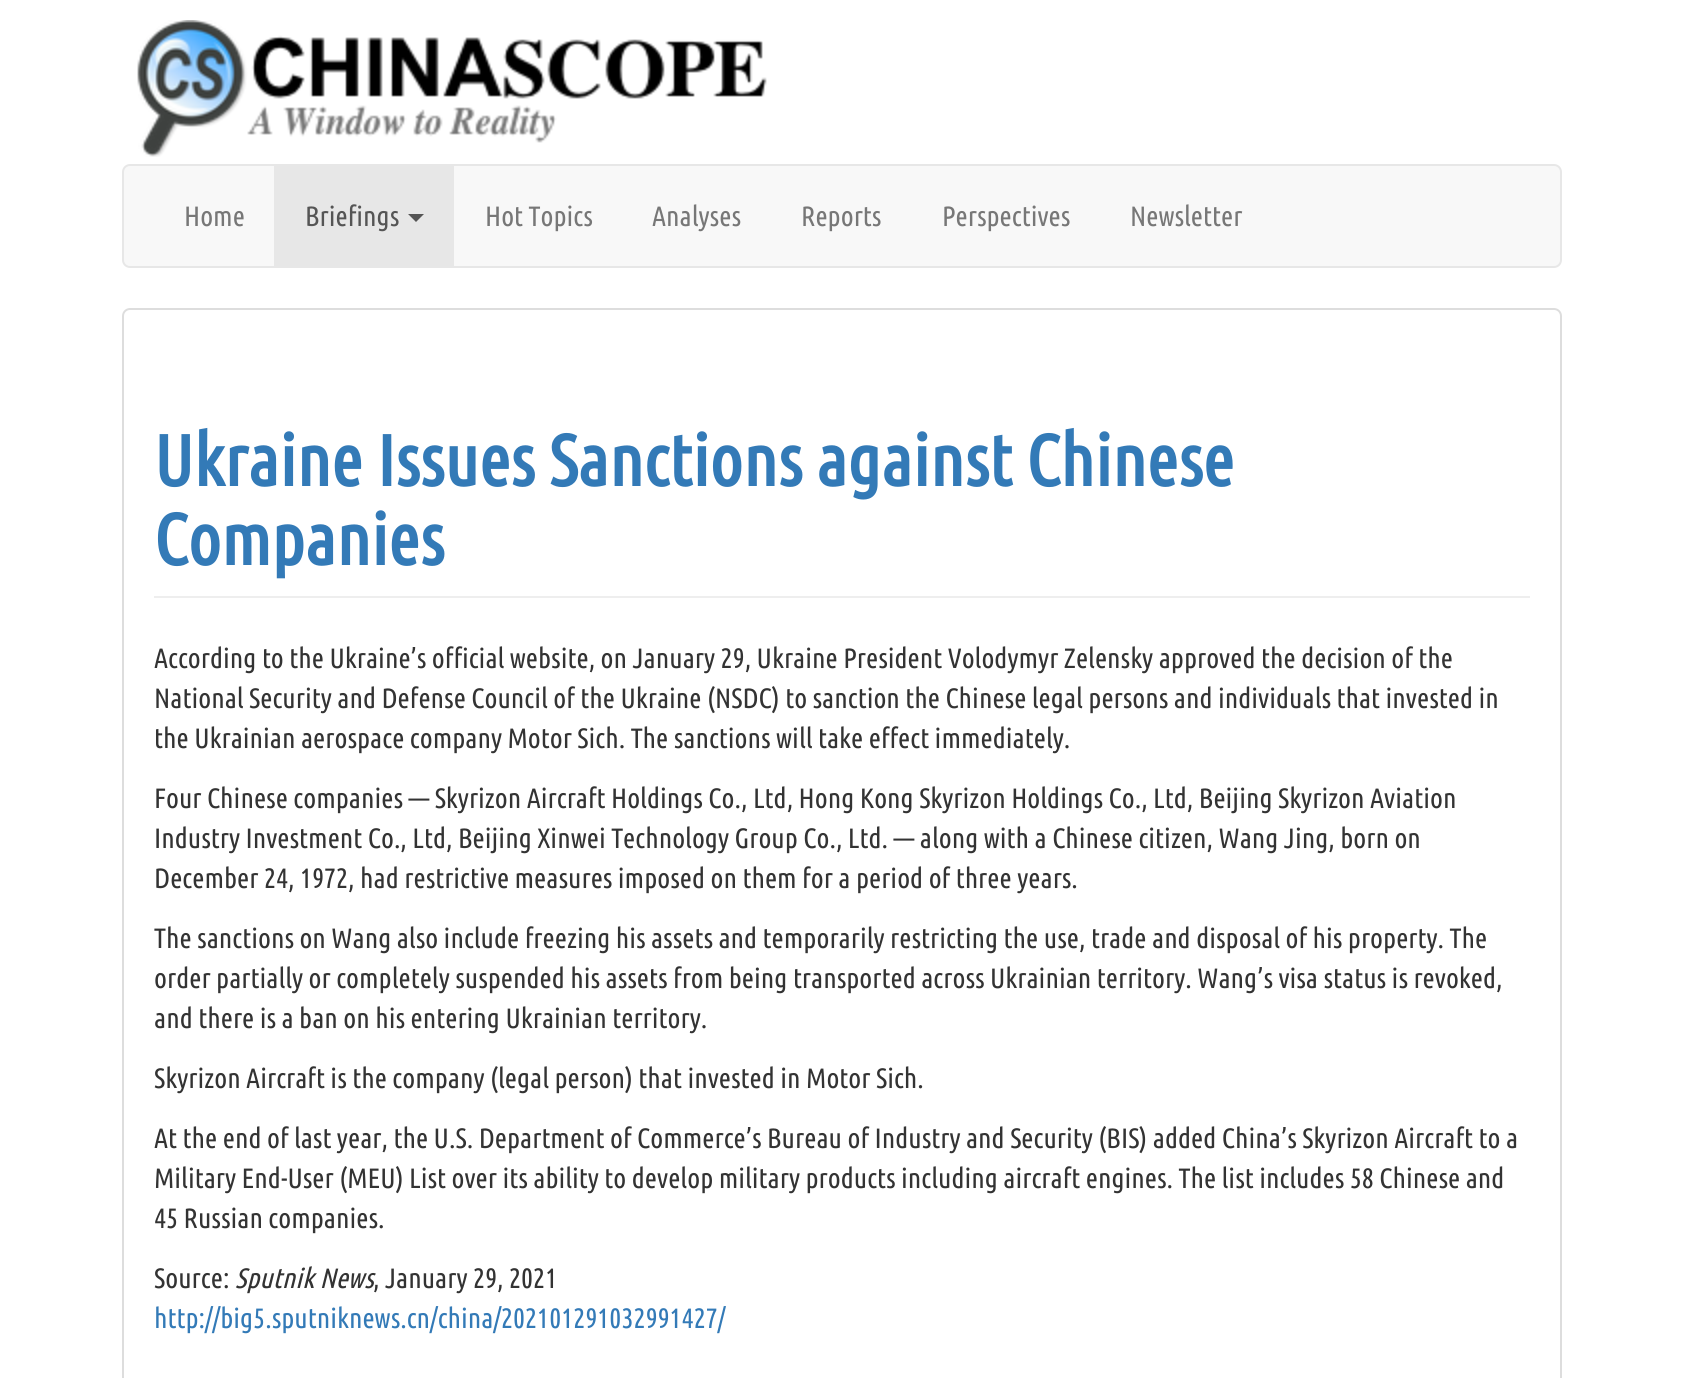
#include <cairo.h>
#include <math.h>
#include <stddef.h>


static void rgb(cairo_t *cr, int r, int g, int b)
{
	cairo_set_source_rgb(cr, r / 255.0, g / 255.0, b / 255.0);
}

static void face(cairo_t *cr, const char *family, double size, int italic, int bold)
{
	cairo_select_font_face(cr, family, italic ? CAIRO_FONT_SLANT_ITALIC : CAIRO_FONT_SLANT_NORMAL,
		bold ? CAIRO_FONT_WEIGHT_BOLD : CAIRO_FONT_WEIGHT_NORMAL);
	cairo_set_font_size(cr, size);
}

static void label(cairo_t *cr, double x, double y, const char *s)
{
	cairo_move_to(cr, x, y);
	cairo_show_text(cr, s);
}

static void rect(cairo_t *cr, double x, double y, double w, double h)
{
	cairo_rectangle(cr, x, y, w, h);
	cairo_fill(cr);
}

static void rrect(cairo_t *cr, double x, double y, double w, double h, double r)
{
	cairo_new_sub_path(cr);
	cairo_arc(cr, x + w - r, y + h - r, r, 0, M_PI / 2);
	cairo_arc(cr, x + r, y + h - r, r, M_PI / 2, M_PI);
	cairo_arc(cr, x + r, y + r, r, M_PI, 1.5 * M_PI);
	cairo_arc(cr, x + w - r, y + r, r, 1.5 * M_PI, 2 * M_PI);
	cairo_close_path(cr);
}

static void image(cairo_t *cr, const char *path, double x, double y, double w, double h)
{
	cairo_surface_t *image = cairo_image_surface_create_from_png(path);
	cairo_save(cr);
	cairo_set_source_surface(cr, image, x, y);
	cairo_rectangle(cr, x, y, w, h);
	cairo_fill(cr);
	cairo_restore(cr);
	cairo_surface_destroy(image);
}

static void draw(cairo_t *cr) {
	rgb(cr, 255, 255, 255);
	cairo_paint(cr);
	image(cr, "image0.png", 137, 20, 630, 137);
	rgb(cr, 248, 248, 248);
	rrect(cr, 123, 165, 1438, 102, 7);
	cairo_fill_preserve(cr);
	rgb(cr, 231, 231, 231);
	cairo_stroke(cr);
	face(cr, "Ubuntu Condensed", 28, 0, 0);
	rgb(cr, 119, 119, 119);
	label(cr, 184, 226, "Home");
	rgb(cr, 231, 231, 231);
	rect(cr, 274, 166, 180, 100);
	rgb(cr, 85, 85, 85);
	label(cr, 305, 226, "Briefings");
	cairo_new_path(cr);
	cairo_move_to(cr, 408, 214);
	cairo_line_to(cr, 424, 214);
	cairo_line_to(cr, 416, 222);
	cairo_close_path(cr);
	cairo_fill(cr);
	rgb(cr, 119, 119, 119);
	label(cr, 485, 226, "Hot Topics");
	label(cr, 652, 226, "Analyses");
	label(cr, 801, 226, "Reports");
	label(cr, 942, 226, "Perspectives");
	label(cr, 1130, 226, "Newsletter");
	rrect(cr, 123, 309, 1438, 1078, 7);
	rgb(cr, 221, 221, 221);
	cairo_stroke(cr);
	rgb(cr, 238, 238, 238);
	rect(cr, 154, 596, 1376, 2);
	face(cr, "Ubuntu Condensed", 72, 0, 1);
	rgb(cr, 51, 122, 183);
	label(cr, 154, 486, "Ukraine Issues Sanctions against Chinese");
	label(cr, 154, 565, "Companies");
	face(cr, "Ubuntu Condensed", 28, 0, 0);
	rgb(cr, 51, 51, 51);
	label(cr, 154, 668, "According to the Ukraine’s official website, on January 29, Ukraine President Volodymyr Zelensky approved the decision of the");
	label(cr, 154, 708, "National Security and Defense Council of the Ukraine (NSDC) to sanction the Chinese legal persons and individuals that invested in");
	label(cr, 154, 748, "the Ukrainian aerospace company Motor Sich. The sanctions will take effect immediately.");
	label(cr, 154, 808, "Four Chinese companies — Skyrizon Aircraft Holdings Co., Ltd, Hong Kong Skyrizon Holdings Co., Ltd, Beijing Skyrizon Aviation");
	label(cr, 154, 848, "Industry Investment Co., Ltd, Beijing Xinwei Technology Group Co., Ltd. — along with a Chinese citizen, Wang Jing, born on");
	label(cr, 154, 888, "December 24, 1972, had restrictive measures imposed on them for a period of three years.");
	label(cr, 154, 948, "The sanctions on Wang also include freezing his assets and temporarily restricting the use, trade and disposal of his property. The");
	label(cr, 154, 988, "order partially or completely suspended his assets from being transported across Ukrainian territory. Wang’s visa status is revoked,");
	label(cr, 154, 1028, "and there is a ban on his entering Ukrainian territory.");
	label(cr, 154, 1088, "Skyrizon Aircraft is the company (legal person) that invested in Motor Sich.");
	label(cr, 154, 1148, "At the end of last year, the U.S. Department of Commerce’s Bureau of Industry and Security (BIS) added China’s Skyrizon Aircraft to a");
	label(cr, 154, 1188, "Military End-User (MEU) List over its ability to develop military products including aircraft engines. The list includes 58 Chinese and");
	label(cr, 154, 1228, "45 Russian companies.");
	label(cr, 154, 1288, "Source:");
	face(cr, "Ubuntu Condensed", 28, 1, 0);
	label(cr, 235, 1288, "Sputnik News");
	face(cr, "Ubuntu Condensed", 28, 0, 0);
	label(cr, 373, 1288, ", January 29, 2021");
	rgb(cr, 51, 122, 183);
	label(cr, 154, 1328, "http://big5.sputniknews.cn/china/202101291032991427/");
}

int main(void) {
	cairo_surface_t *surface = cairo_image_surface_create(CAIRO_FORMAT_RGB24, 1683, 1378);
	cairo_t *cr = cairo_create(surface);
	cairo_font_options_t *options = cairo_font_options_create();
	cairo_font_options_set_hint_metrics(options, CAIRO_HINT_METRICS_OFF);
	cairo_font_options_set_hint_style(options, CAIRO_HINT_STYLE_NONE);
	cairo_set_font_options(cr, options);
	cairo_set_miter_limit(cr, 4);
	draw(cr);
	cairo_surface_write_to_png(surface, "render.png");
	cairo_font_options_destroy(options);
	cairo_destroy(cr);
	cairo_surface_destroy(surface);
	return 0;
}
